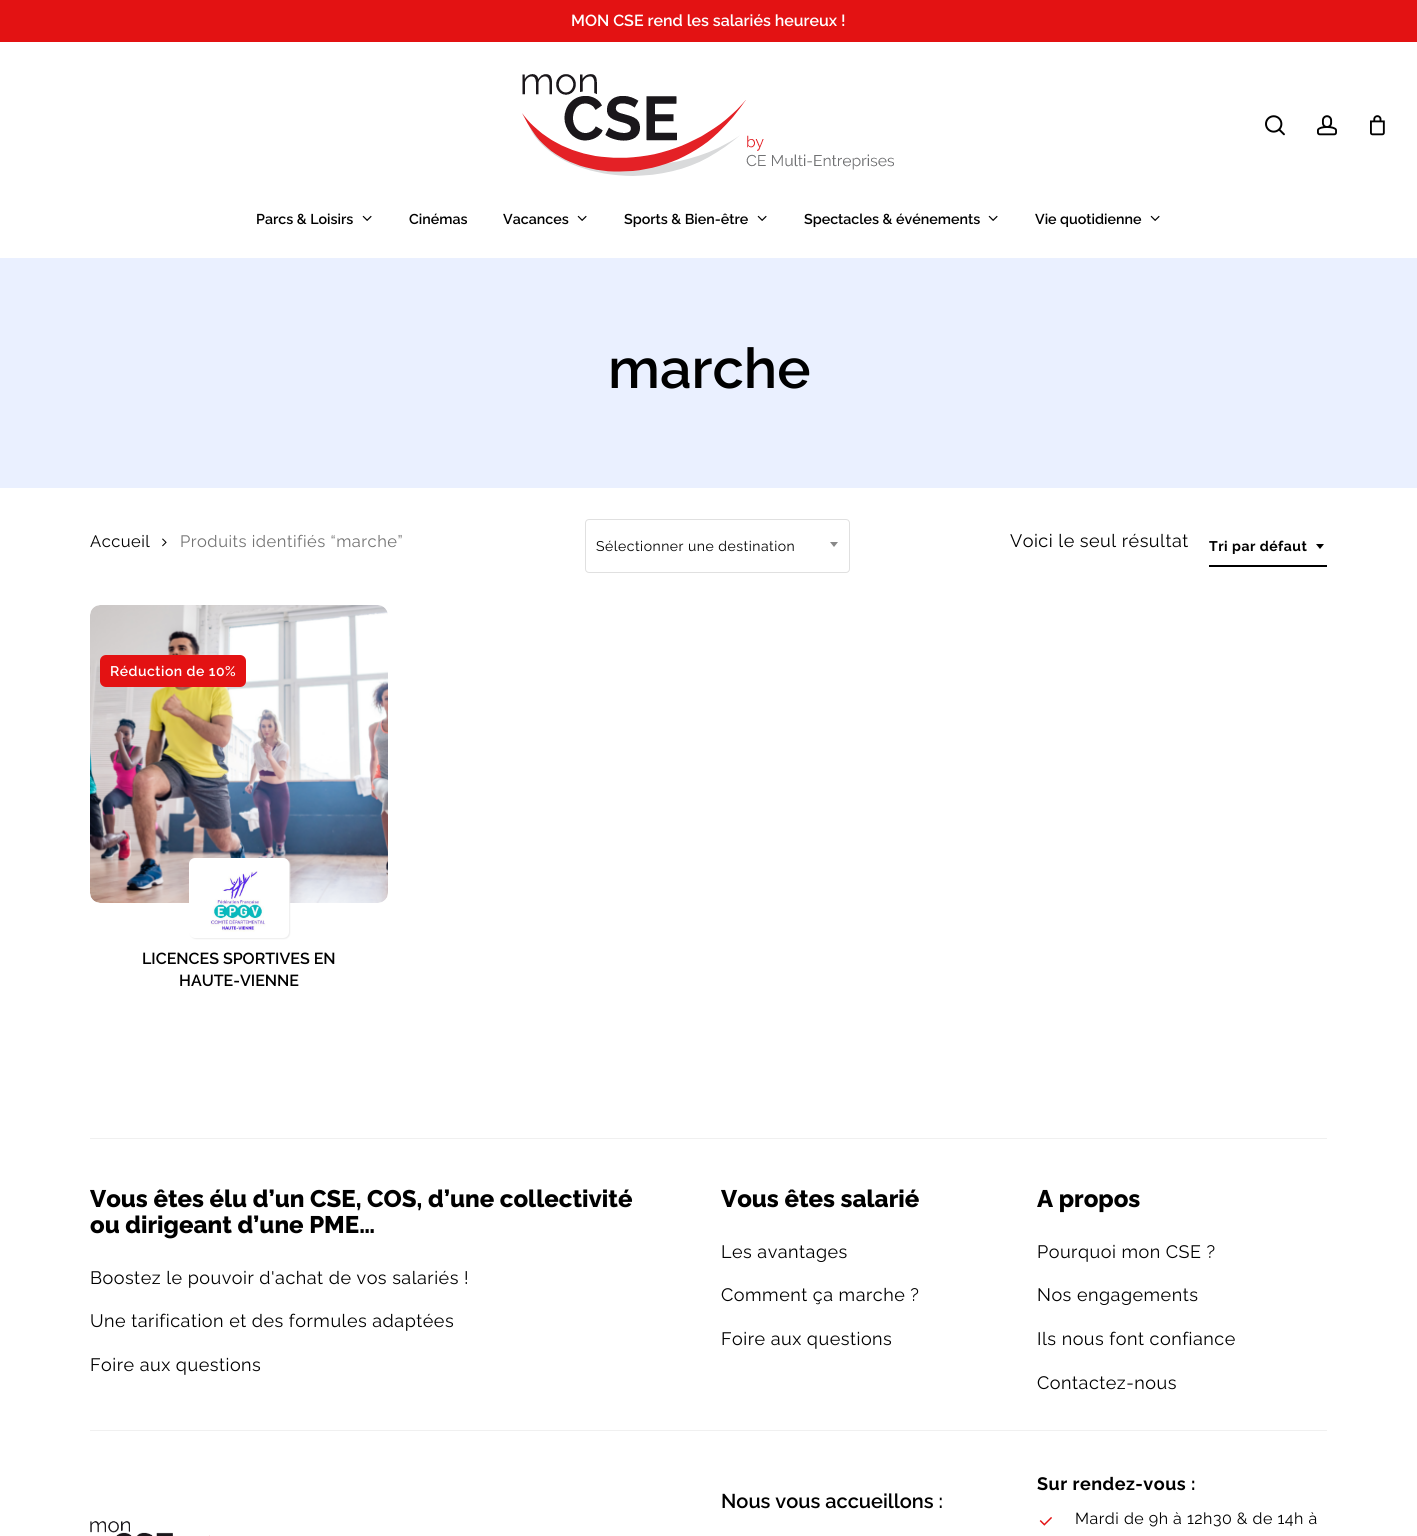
#include <cairo.h>
#include <math.h>
#include <stddef.h>


static void rgb(cairo_t *cr, int r, int g, int b)
{
	cairo_set_source_rgb(cr, r / 255.0, g / 255.0, b / 255.0);
}

static void face(cairo_t *cr, const char *family, double size, int italic, int bold)
{
	cairo_select_font_face(cr, family, italic ? CAIRO_FONT_SLANT_ITALIC : CAIRO_FONT_SLANT_NORMAL,
		bold ? CAIRO_FONT_WEIGHT_BOLD : CAIRO_FONT_WEIGHT_NORMAL);
	cairo_set_font_size(cr, size);
}

static void label(cairo_t *cr, double x, double y, const char *s)
{
	cairo_move_to(cr, x, y);
	cairo_show_text(cr, s);
}

static void tracked(cairo_t *cr, double x, double y, const char *s, double letter, double word)
{
	cairo_move_to(cr, x, y);
	while (*s) {
		char ch[5] = {0};
		int n = 0;
		do ch[n++] = *s++; while ((*s & 0xC0) == 0x80);
		cairo_show_text(cr, ch);
		cairo_rel_move_to(cr, letter + word * (*ch == ' '), 0);
	}
}

static void rect(cairo_t *cr, double x, double y, double w, double h)
{
	cairo_rectangle(cr, x, y, w, h);
	cairo_fill(cr);
}

static void rrect(cairo_t *cr, double x, double y, double w, double h, double r)
{
	cairo_new_sub_path(cr);
	cairo_arc(cr, x + w - r, y + h - r, r, 0, M_PI / 2);
	cairo_arc(cr, x + r, y + h - r, r, M_PI / 2, M_PI);
	cairo_arc(cr, x + r, y + r, r, M_PI, 1.5 * M_PI);
	cairo_arc(cr, x + w - r, y + r, r, 1.5 * M_PI, 2 * M_PI);
	cairo_close_path(cr);
}

static void soft_shadow(cairo_t *cr, double x, double y, double w, double h, double r, double blur, double alpha)
{
	cairo_push_group_with_content(cr, CAIRO_CONTENT_ALPHA);
	cairo_set_operator(cr, CAIRO_OPERATOR_SOURCE);
	for (int i = 15; i >= -15 && fmin(w, h) + blur * i / 3 > 0; i -= 2) {
		double e = blur * i / 6;
		cairo_set_source_rgba(cr, 0, 0, 0, alpha * erfc((i - 1) / 8.5) / 2);
		rrect(cr, x - e, y - e, w + 2 * e, h + 2 * e, fmax(0, fmin(r + e + blur * .6, fmin(w, h) / 2 + e)));
		cairo_fill(cr);
	}
	cairo_pattern_t *soft = cairo_pop_group(cr);
	cairo_mask(cr, soft);
	cairo_pattern_destroy(soft);
}

static void image(cairo_t *cr, const char *path, double x, double y, double w, double h)
{
	cairo_surface_t *image = cairo_image_surface_create_from_png(path);
	cairo_save(cr);
	cairo_set_source_surface(cr, image, x, y);
	cairo_rectangle(cr, x, y, w, h);
	cairo_fill(cr);
	cairo_restore(cr);
	cairo_surface_destroy(image);
}

static void draw(cairo_t *cr) {
	rgb(cr, 255, 255, 255);
	cairo_paint(cr);
	rgb(cr, 227, 18, 19);
	rect(cr, 0, 0, 1417, 42);
	face(cr, "Raleway SemiBold", 16, 0, 0);
	rgb(cr, 255, 255, 255);
	label(cr, 571, 26, "MON CSE rend les salariés heureux !");
	image(cr, "image0.png", 522, 74, 372, 102);
	image(cr, "image1.png", 1265, 115, 20, 21);
	image(cr, "image2.png", 1317, 115, 20, 21);
	image(cr, "image3.png", 1370, 115, 15, 21);
	face(cr, "Raleway SemiBold", 14.25, 0, 0);
	rgb(cr, 0, 0, 0);
	label(cr, 256, 224, "Parcs & Loisirs");
	image(cr, "image4.png", 362, 215, 10, 6);
	label(cr, 409, 224, "Cinémas");
	label(cr, 503, 224, "Vacances");
	image(cr, "image4.png", 577, 215, 10, 6);
	label(cr, 624, 224, "Sports & Bien-être");
	image(cr, "image4.png", 757, 215, 10, 6);
	label(cr, 804, 224, "Spectacles & événements");
	image(cr, "image4.png", 988, 215, 10, 6);
	label(cr, 1035, 224, "Vie quotidienne");
	image(cr, "image4.png", 1150, 215, 10, 6);
	rgb(cr, 234, 240, 255);
	rect(cr, 0, 258, 1417, 230);
	face(cr, "Raleway SemiBold", 56, 0, 0);
	rgb(cr, 0, 0, 0);
	label(cr, 608, 388, "marche");
	face(cr, "Raleway Thin", 16.5, 0, 0);
	tracked(cr, 90, 547, "Accueil", 0.5, 0);
	image(cr, "image5.png", 162, 538, 5, 9);
	rgb(cr, 115, 115, 115);
	tracked(cr, 180, 547, "Produits identifiés “marche”", 0.5, 0);
	face(cr, "Raleway Thin", 18, 0, 0);
	rgb(cr, 0, 0, 0);
	tracked(cr, 1010, 547, "Voici le seul résultat", 0.5, 0);
	rect(cr, 1209, 565, 118, 2);
	face(cr, "Raleway", 14, 0, 1);
	tracked(cr, 1209, 551, "Tri par défaut", 0.5, 0);
	cairo_new_path(cr);
	cairo_move_to(cr, 1316, 544);
	cairo_line_to(cr, 1324, 544);
	cairo_line_to(cr, 1320, 549);
	cairo_close_path(cr);
	cairo_fill(cr);
	rrect(cr, 585.5, 519.5, 264, 53, 3.5);
	rgb(cr, 224, 224, 224);
	cairo_set_line_width(cr, 1);
	cairo_stroke(cr);
	face(cr, "Raleway Thin", 14, 0, 0);
	rgb(cr, 0, 0, 0);
	tracked(cr, 596, 551, "Sélectionner une destination", 0.5, 0);
	rgb(cr, 136, 136, 136);
	cairo_new_path(cr);
	cairo_move_to(cr, 830, 542);
	cairo_line_to(cr, 838, 542);
	cairo_line_to(cr, 834, 547);
	cairo_close_path(cr);
	cairo_fill(cr);
	rgb(cr, 248, 248, 248);
	rrect(cr, 90, 605, 298, 298, 10);
	cairo_fill(cr);
	image(cr, "image6.png", 90, 605, 298, 298);
	rgb(cr, 227, 18, 19);
	rrect(cr, 100, 655, 146, 32, 6);
	cairo_fill(cr);
	face(cr, "Raleway SemiBold", 14, 0, 0);
	rgb(cr, 255, 255, 255);
	tracked(cr, 110, 676, "Réduction de 10%", 0.5, 0);
	rgb(cr, 238, 238, 238);
	soft_shadow(cr, 190, 859, 100, 80, 6, 0.5, 1);
	rgb(cr, 255, 255, 255);
	rrect(cr, 189, 858, 100, 80, 6);
	cairo_fill(cr);
	image(cr, "image7.png", 210, 871, 56, 61);
	face(cr, "Raleway SemiBold", 16, 0, 0);
	rgb(cr, 0, 0, 0);
	label(cr, 142, 964, "LICENCES SPORTIVES EN");
	label(cr, 179, 986, "HAUTE-VIENNE");
	rgb(cr, 240, 240, 240);
	rect(cr, 90, 1138, 1237, 1);
	face(cr, "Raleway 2 Thin", 24, 0, 0);
	rgb(cr, 0, 0, 0);
	label(cr, 90, 1207, "Vous êtes élu d’un CSE, COS, d’une collectivité");
	label(cr, 90, 1233, "ou dirigeant d’une PME…");
	face(cr, "Raleway Thin", 18, 0, 0);
	tracked(cr, 90, 1284, "Boostez le pouvoir d'achat de vos salariés !", 0.5, 0);
	tracked(cr, 90, 1327, "Une tarification et des formules adaptées", 0.5, 0);
	tracked(cr, 90, 1371, "Foire aux questions", 0.5, 0);
	face(cr, "Raleway 2 Thin", 24, 0, 0);
	label(cr, 721, 1207, "Vous êtes salarié");
	face(cr, "Raleway Thin", 18, 0, 0);
	tracked(cr, 721, 1258, "Les avantages", 0.5, 0);
	tracked(cr, 721, 1301, "Comment ça marche ?", 0.5, 0);
	tracked(cr, 721, 1345, "Foire aux questions", 0.5, 0);
	face(cr, "Raleway 2 Thin", 24, 0, 0);
	label(cr, 1037, 1207, "A propos");
	face(cr, "Raleway Thin", 18, 0, 0);
	tracked(cr, 1037, 1258, "Pourquoi mon CSE ?", 0.5, 0);
	tracked(cr, 1037, 1301, "Nos engagements", 0.5, 0);
	tracked(cr, 1037, 1345, "Ils nous font confiance", 0.5, 0);
	tracked(cr, 1037, 1389, "Contactez-nous", 0.5, 0);
	rgb(cr, 240, 240, 240);
	rect(cr, 90, 1430, 1237, 1);
	face(cr, "Raleway SemiBold", 20, 0, 0);
	rgb(cr, 0, 0, 0);
	label(cr, 721, 1508, "Nous vous accueillons :");
	face(cr, "Raleway", 18, 0, 1);
	tracked(cr, 1037, 1490, "Sur rendez-vous :", 0.5, 0);
	image(cr, "image8.png", 1039, 1517, 13, 9);
	face(cr, "Raleway Thin", 16, 0, 0);
	tracked(cr, 1075, 1524, "Mardi de 9h à 12h30 & de 14h à", 0.5, 0);
	image(cr, "image9.png", 90, 1521, 120, 15);
}

int main(void) {
	cairo_surface_t *surface = cairo_image_surface_create(CAIRO_FORMAT_RGB24, 1417, 1536);
	cairo_t *cr = cairo_create(surface);
	cairo_font_options_t *options = cairo_font_options_create();
	cairo_font_options_set_hint_metrics(options, CAIRO_HINT_METRICS_OFF);
	cairo_font_options_set_hint_style(options, CAIRO_HINT_STYLE_NONE);
	cairo_set_font_options(cr, options);
	cairo_set_miter_limit(cr, 4);
	draw(cr);
	cairo_surface_write_to_png(surface, "render.png");
	cairo_font_options_destroy(options);
	cairo_destroy(cr);
	cairo_surface_destroy(surface);
	return 0;
}
